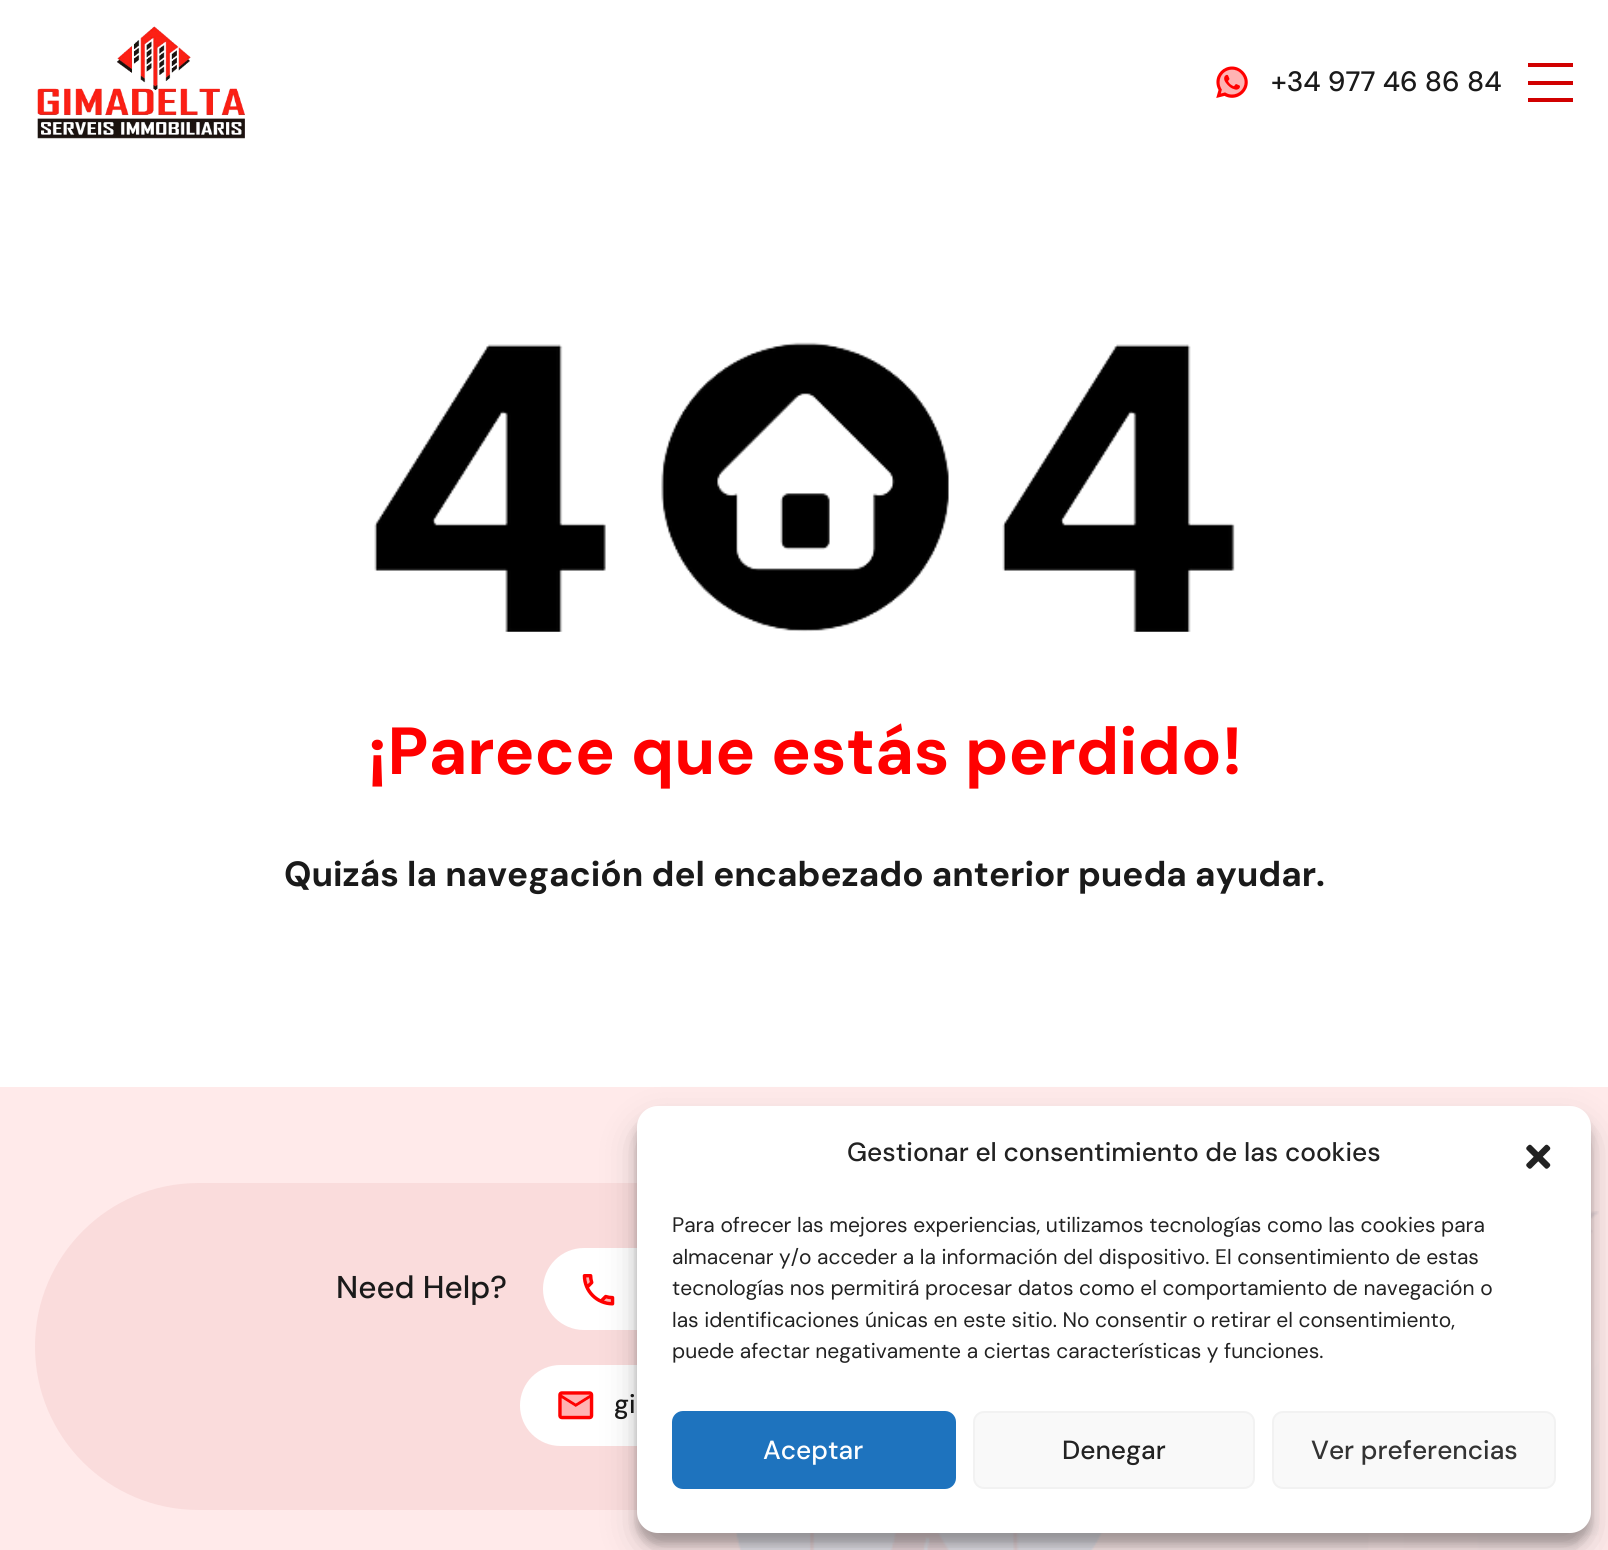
#include <cairo.h>
#include <math.h>
#include <stddef.h>


static void rgb(cairo_t *cr, int r, int g, int b)
{
	cairo_set_source_rgb(cr, r / 255.0, g / 255.0, b / 255.0);
}

static void face(cairo_t *cr, const char *family, double size, int italic, int bold)
{
	cairo_select_font_face(cr, family, italic ? CAIRO_FONT_SLANT_ITALIC : CAIRO_FONT_SLANT_NORMAL,
		bold ? CAIRO_FONT_WEIGHT_BOLD : CAIRO_FONT_WEIGHT_NORMAL);
	cairo_set_font_size(cr, size);
}

static void label(cairo_t *cr, double x, double y, const char *s)
{
	cairo_move_to(cr, x, y);
	cairo_show_text(cr, s);
}

static void rect(cairo_t *cr, double x, double y, double w, double h)
{
	cairo_rectangle(cr, x, y, w, h);
	cairo_fill(cr);
}

static void rrect(cairo_t *cr, double x, double y, double w, double h, double r)
{
	cairo_new_sub_path(cr);
	cairo_arc(cr, x + w - r, y + h - r, r, 0, M_PI / 2);
	cairo_arc(cr, x + r, y + h - r, r, M_PI / 2, M_PI);
	cairo_arc(cr, x + r, y + r, r, M_PI, 1.5 * M_PI);
	cairo_arc(cr, x + w - r, y + r, r, 1.5 * M_PI, 2 * M_PI);
	cairo_close_path(cr);
}

static void soft_shadow(cairo_t *cr, double x, double y, double w, double h, double r, double blur, double alpha)
{
	cairo_push_group_with_content(cr, CAIRO_CONTENT_ALPHA);
	cairo_set_operator(cr, CAIRO_OPERATOR_SOURCE);
	for (int i = 15; i >= -15 && fmin(w, h) + blur * i / 3 > 0; i -= 2) {
		double e = blur * i / 6;
		cairo_set_source_rgba(cr, 0, 0, 0, alpha * erfc((i - 1) / 8.5) / 2);
		rrect(cr, x - e, y - e, w + 2 * e, h + 2 * e, fmax(0, fmin(r + e + blur * .6, fmin(w, h) / 2 + e)));
		cairo_fill(cr);
	}
	cairo_pattern_t *soft = cairo_pop_group(cr);
	cairo_mask(cr, soft);
	cairo_pattern_destroy(soft);
}

static void image(cairo_t *cr, const char *path, double x, double y, double w, double h)
{
	cairo_surface_t *image = cairo_image_surface_create_from_png(path);
	cairo_save(cr);
	cairo_set_source_surface(cr, image, x, y);
	cairo_rectangle(cr, x, y, w, h);
	cairo_fill(cr);
	cairo_restore(cr);
	cairo_surface_destroy(image);
}

static void draw(cairo_t *cr) {
	rgb(cr, 255, 255, 255);
	cairo_paint(cr);
	image(cr, "image0.png", 37, 26, 208, 113);
	image(cr, "image1.png", 1216, 66, 32, 32);
	face(cr, "DM Sans Medium", 28, 0, 0);
	rgb(cr, 26, 26, 26);
	label(cr, 1271, 91, "+34 977 46 86 84");
	rgb(cr, 209, 0, 0);
	rect(cr, 1528, 81, 45, 4);
	rect(cr, 1528, 63, 45, 4);
	rect(cr, 1528, 98, 45, 4);
	image(cr, "image2.png", 374, 342, 861, 290);
	face(cr, "DM Sans", 66.5, 0, 1);
	rgb(cr, 255, 0, 0);
	label(cr, 367, 774, "¡Parece que estás perdido!");
	face(cr, "DM Sans", 35, 0, 1);
	rgb(cr, 26, 26, 26);
	label(cr, 284, 886, "Quizás la navegación del encabezado anterior pueda ayudar.");
	rgb(cr, 255, 234, 234);
	rect(cr, 0, 1087, 1608, 463);
	image(cr, "image5.png", 736, 1211, 863, 339);
	rgb(cr, 250, 220, 220);
	rrect(cr, 35, 1183, 1538, 327, 163.5);
	cairo_fill(cr);
	face(cr, "DM Sans Medium", 31.5, 0, 0);
	rgb(cr, 26, 26, 26);
	label(cr, 336, 1298, "Need Help?");
	rgb(cr, 255, 255, 255);
	rrect(cr, 543, 1248, 350, 82, 41);
	cairo_fill(cr);
	image(cr, "image3.png", 582, 1274, 33, 32);
	rrect(cr, 520, 1365, 569, 81, 40.5);
	cairo_fill(cr);
	image(cr, "image4.png", 558, 1391, 36, 29);
	face(cr, "DM Sans Medium", 26.25, 0, 0);
	rgb(cr, 26, 26, 26);
	label(cr, 614, 1413, "gi");
	rgb(cr, 0, 0, 0);
	soft_shadow(cr, 637, 1117, 954, 427, 21, 5, 0.23);
	soft_shadow(cr, 637, 1124, 954, 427, 21, 17.5, 0.19);
	rgb(cr, 255, 255, 255);
	rrect(cr, 637, 1106, 954, 427, 21);
	cairo_fill(cr);
	rgb(cr, 34, 34, 34);
	label(cr, 847, 1161, "Gestionar el consentimiento de las cookies");
	image(cr, "image6.png", 1526, 1144, 25, 25);
	face(cr, "DM Sans", 21, 0, 0);
	label(cr, 672, 1232, "Para ofrecer las mejores experiencias, utilizamos tecnologías como las cookies para");
	label(cr, 672, 1264, "almacenar y/o acceder a la información del dispositivo. El consentimiento de estas");
	label(cr, 672, 1295, "tecnologías nos permitirá procesar datos como el comportamiento de navegación o");
	label(cr, 672, 1327, "las identificaciones únicas en este sitio. No consentir o retirar el consentimiento,");
	label(cr, 672, 1358, "puede afectar negativamente a ciertas características y funciones.");
	rgb(cr, 30, 115, 190);
	rrect(cr, 673, 1412, 282, 76, 10);
	cairo_fill_preserve(cr);
	cairo_stroke(cr);
	face(cr, "DM Sans Medium", 26.25, 0, 0);
	rgb(cr, 255, 255, 255);
	label(cr, 763, 1459, "Aceptar");
	rgb(cr, 249, 249, 249);
	rrect(cr, 974, 1412, 280, 76, 10);
	cairo_fill_preserve(cr);
	rgb(cr, 242, 242, 242);
	cairo_stroke(cr);
	rgb(cr, 34, 34, 34);
	label(cr, 1062, 1459, "Denegar");
	rgb(cr, 249, 249, 249);
	rrect(cr, 1273, 1412, 282, 76, 10);
	cairo_fill_preserve(cr);
	rgb(cr, 242, 242, 242);
	cairo_stroke(cr);
	rgb(cr, 51, 51, 51);
	label(cr, 1311, 1459, "Ver preferencias");
}

int main(void) {
	cairo_surface_t *surface = cairo_image_surface_create(CAIRO_FORMAT_RGB24, 1608, 1550);
	cairo_t *cr = cairo_create(surface);
	cairo_font_options_t *options = cairo_font_options_create();
	cairo_font_options_set_hint_metrics(options, CAIRO_HINT_METRICS_OFF);
	cairo_font_options_set_hint_style(options, CAIRO_HINT_STYLE_NONE);
	cairo_set_font_options(cr, options);
	cairo_set_miter_limit(cr, 4);
	draw(cr);
	cairo_surface_write_to_png(surface, "render.png");
	cairo_font_options_destroy(options);
	cairo_destroy(cr);
	cairo_surface_destroy(surface);
	return 0;
}
